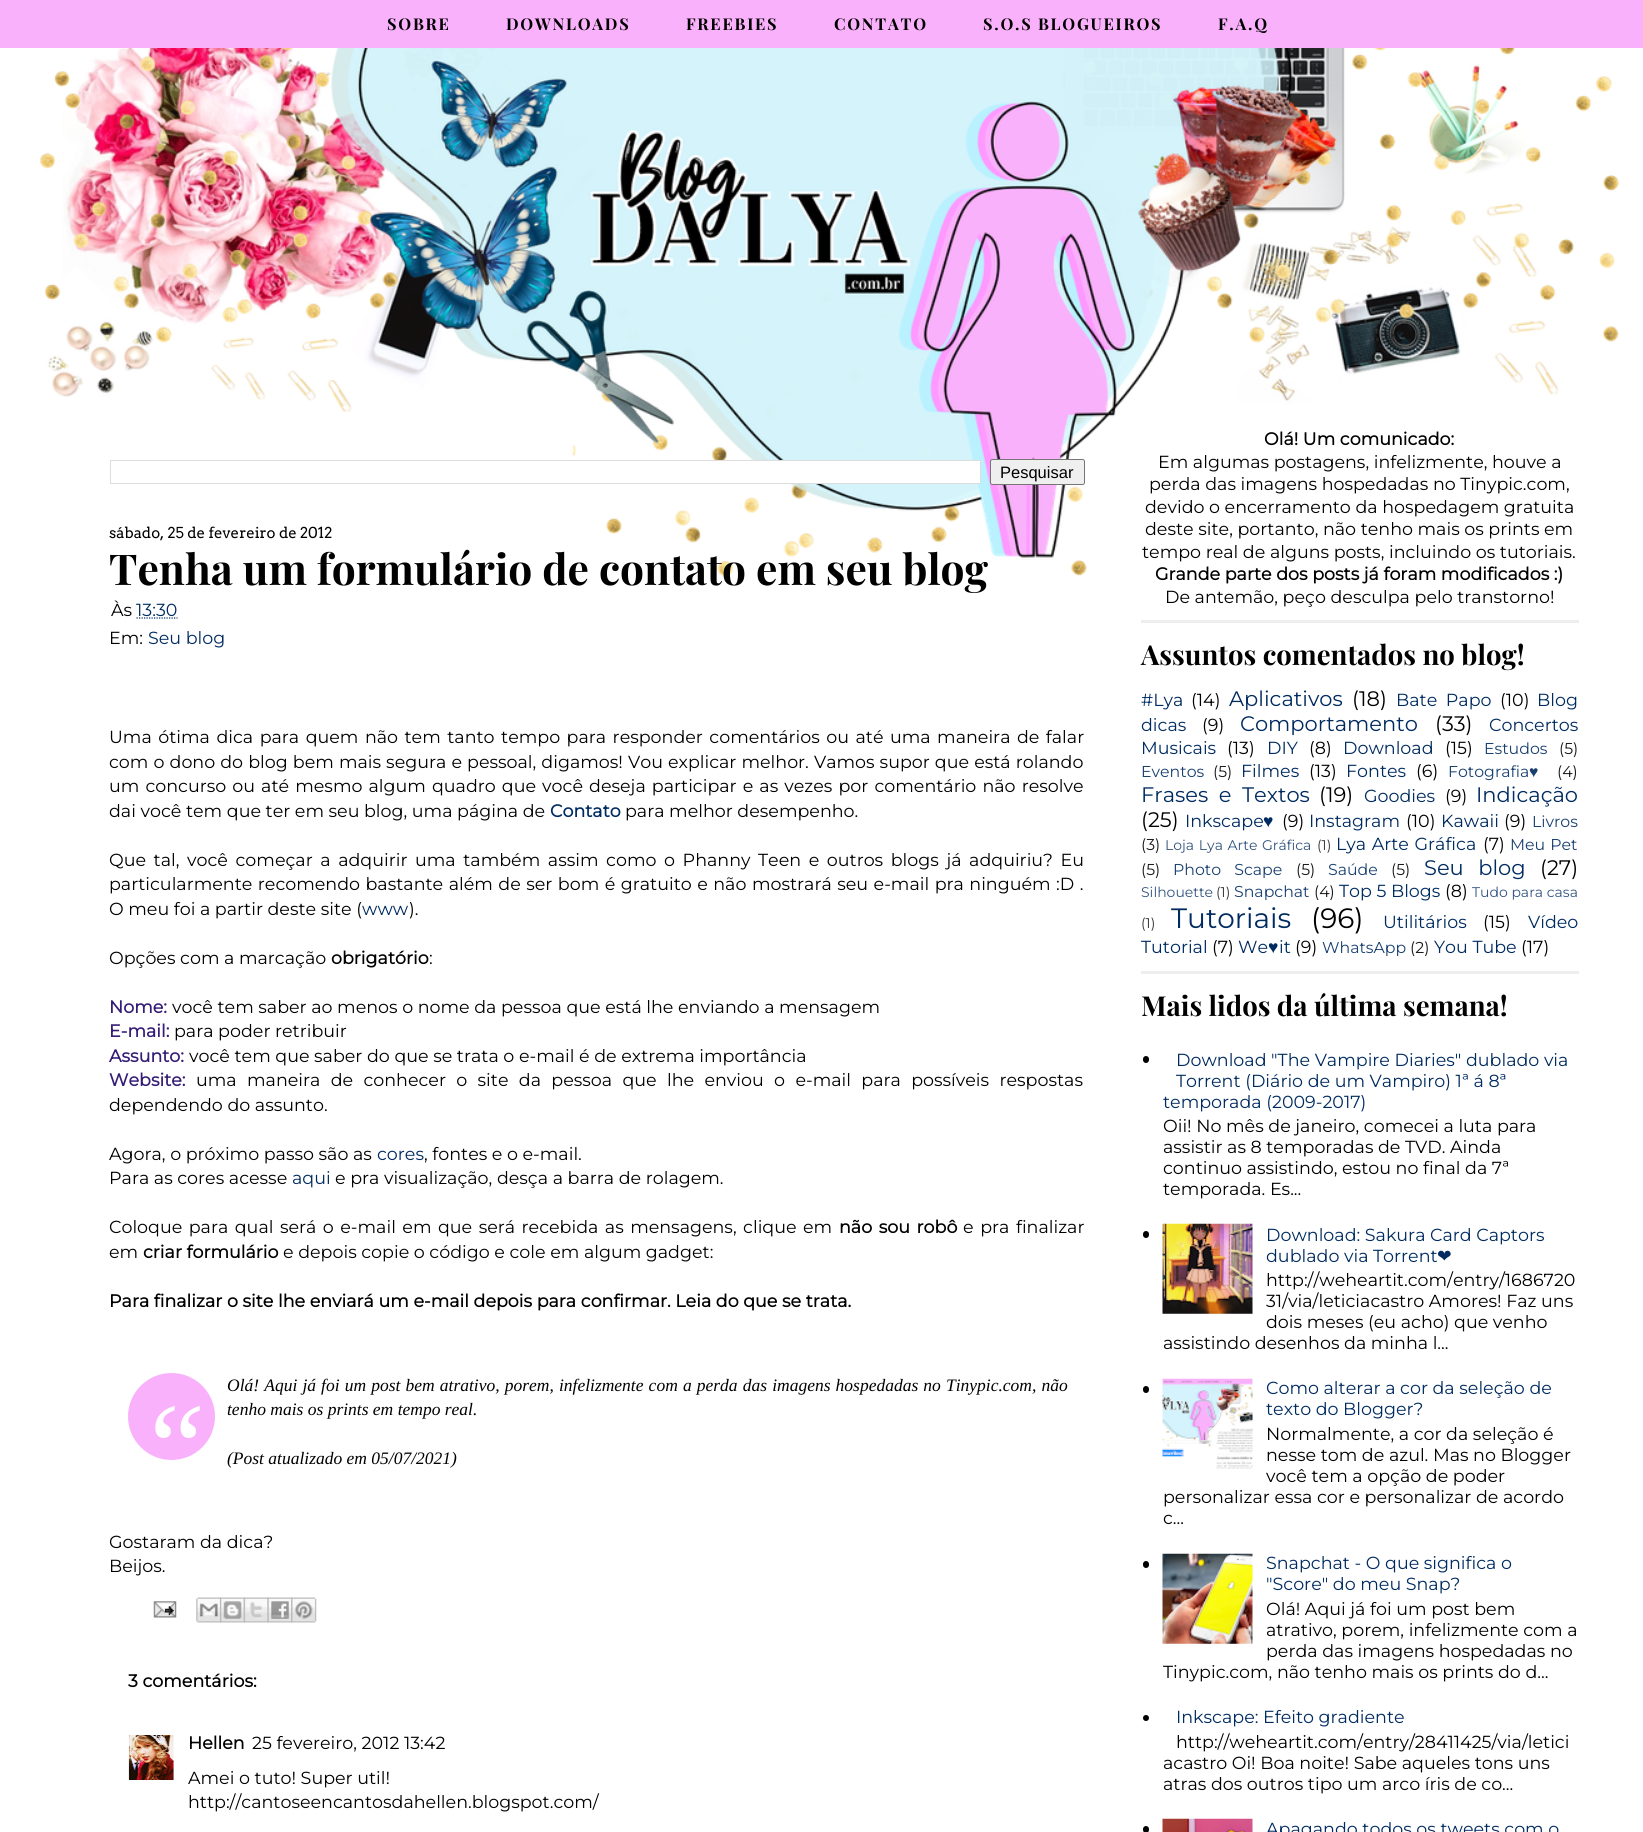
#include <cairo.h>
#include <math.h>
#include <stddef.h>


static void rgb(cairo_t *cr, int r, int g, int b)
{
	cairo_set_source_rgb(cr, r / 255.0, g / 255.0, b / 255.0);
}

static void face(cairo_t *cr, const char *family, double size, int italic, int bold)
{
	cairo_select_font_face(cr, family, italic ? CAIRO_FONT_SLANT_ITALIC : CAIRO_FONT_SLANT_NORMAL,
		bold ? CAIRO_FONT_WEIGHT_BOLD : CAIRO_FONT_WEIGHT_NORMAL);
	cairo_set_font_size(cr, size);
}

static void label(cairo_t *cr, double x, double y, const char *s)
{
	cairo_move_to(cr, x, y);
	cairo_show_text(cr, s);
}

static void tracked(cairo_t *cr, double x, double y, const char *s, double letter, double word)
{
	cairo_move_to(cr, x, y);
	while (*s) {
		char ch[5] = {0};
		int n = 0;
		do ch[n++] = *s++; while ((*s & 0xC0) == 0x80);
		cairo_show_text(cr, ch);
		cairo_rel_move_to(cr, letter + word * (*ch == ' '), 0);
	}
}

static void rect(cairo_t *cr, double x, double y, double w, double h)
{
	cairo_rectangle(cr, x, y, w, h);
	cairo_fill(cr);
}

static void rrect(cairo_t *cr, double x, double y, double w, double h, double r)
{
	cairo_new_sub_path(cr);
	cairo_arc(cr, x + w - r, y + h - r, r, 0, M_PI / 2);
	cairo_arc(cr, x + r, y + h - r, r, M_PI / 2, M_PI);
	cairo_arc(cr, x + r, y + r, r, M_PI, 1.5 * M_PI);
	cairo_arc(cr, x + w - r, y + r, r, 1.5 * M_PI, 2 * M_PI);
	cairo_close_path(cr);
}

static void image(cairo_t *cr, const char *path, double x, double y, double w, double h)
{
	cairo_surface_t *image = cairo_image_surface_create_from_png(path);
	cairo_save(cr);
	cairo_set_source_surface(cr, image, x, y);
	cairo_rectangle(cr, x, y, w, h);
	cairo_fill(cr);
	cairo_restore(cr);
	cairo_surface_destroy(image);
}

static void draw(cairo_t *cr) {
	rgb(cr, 255, 255, 255);
	cairo_paint(cr);
	image(cr, "image0.png", 47, 48, 1512, 365);
	image(cr, "image1.png", 39, 48, 1580, 529);
	rgb(cr, 250, 177, 251);
	rect(cr, 0, 0, 1643, 48);
	face(cr, "Playfair Display", 16.25, 0, 1);
	rgb(cr, 0, 0, 0);
	tracked(cr, 387, 30, "SOBRE", 1.75, 0);
	tracked(cr, 506, 30, "DOWNLOADS", 1.75, 0);
	tracked(cr, 686, 30, "FREEBIES", 1.75, 0);
	tracked(cr, 834, 30, "CONTATO", 1.75, 0);
	tracked(cr, 983, 30, "S.O.S BLOGUEIROS", 1.75, 0);
	tracked(cr, 1218, 30, "F.A.Q", 1.75, 0);
	rgb(cr, 255, 255, 255);
	rect(cr, 634, 461, 346, 22);
	cairo_rectangle(cr, 110.5, 460.5, 870, 23);
	rgb(cr, 221, 221, 221);
	cairo_set_line_width(cr, 1);
	cairo_stroke(cr);
	rgb(cr, 239, 239, 239);
	rrect(cr, 990.5, 459.5, 94, 25, 2);
	cairo_fill_preserve(cr);
	rgb(cr, 118, 118, 118);
	cairo_stroke(cr);
	face(cr, "Liberation Sans", 16.5, 0, 0);
	rgb(cr, 0, 0, 0);
	label(cr, 1000, 478, "Pesquisar");
	face(cr, "Arvo", 15, 0, 0);
	label(cr, 109, 538, "sábado, 25 de fevereiro de 2012");
	face(cr, "Playfair Display", 42.5, 0, 1);
	label(cr, 109, 585, "Tenha um formulário de contato em seu blog");
	face(cr, "Montserrat Thin", 17.5, 0, 0);
	label(cr, 111, 616, "Às");
	rgb(cr, 0, 43, 96);
	label(cr, 136, 616, "13:30");
	cairo_new_path(cr);
	cairo_move_to(cr, 136.5, 618);
	cairo_line_to(cr, 177.5, 618);
	cairo_set_line_width(cr, 1.2);
	cairo_set_dash(cr, (double[]){1.25, 1.25}, 2, 0);
	cairo_stroke(cr);
	rgb(cr, 0, 0, 0);
	label(cr, 109, 644, "Em:");
	rgb(cr, 0, 43, 96);
	label(cr, 148, 644, "Seu blog");
	rgb(cr, 0, 0, 0);
	tracked(cr, 109, 743, "Uma ótima dica para quem não tem tanto tempo para responder comentários ou até uma maneira de falar", 0, 1.9);
	tracked(cr, 109, 768, "com o dono do blog bem mais segura e pessoal, digamos! Vou explicar melhor. Vamos supor que está rolando", 0, 0.5);
	tracked(cr, 109, 792, "um concurso ou até mesmo algum quadro que você deseja participar e as vezes por comentário não resolve", 0, 1.5);
	label(cr, 109, 817, "dai você tem que ter em seu blog, uma página de");
	face(cr, "Montserrat", 17.5, 0, 1);
	rgb(cr, 0, 43, 96);
	label(cr, 550, 817, "Contato");
	face(cr, "Montserrat Thin", 17.5, 0, 0);
	rgb(cr, 0, 0, 0);
	label(cr, 625, 817, "para melhor desempenho.");
	tracked(cr, 109, 866, "Que tal, você começar a adquirir uma também assim como o Phanny Teen e outros blogs já adquiriu? Eu", 0, 3);
	tracked(cr, 109, 890, "particularmente recomendo bastante além de ser bom é gratuito e não mostrará seu e-mail pra ninguém :D .", 0, 0.9);
	label(cr, 109, 915, "O meu foi a partir deste site (");
	rgb(cr, 0, 43, 96);
	label(cr, 362, 915, "www");
	rgb(cr, 0, 0, 0);
	label(cr, 409, 915, ").");
	label(cr, 109, 964, "Opções com a marcação");
	face(cr, "Montserrat", 17.5, 0, 1);
	label(cr, 331, 964, "obrigatório");
	face(cr, "Montserrat Thin", 17.5, 0, 0);
	label(cr, 429, 964, ":");
	face(cr, "Montserrat", 17.5, 0, 1);
	rgb(cr, 53, 28, 117);
	label(cr, 109, 1013, "Nome:");
	face(cr, "Montserrat Thin", 17.5, 0, 0);
	rgb(cr, 0, 0, 0);
	label(cr, 172, 1013, "você tem saber ao menos o nome da pessoa que está lhe enviando a mensagem");
	face(cr, "Montserrat", 17.5, 0, 1);
	rgb(cr, 53, 28, 117);
	label(cr, 109, 1037, "E-mail:");
	face(cr, "Montserrat Thin", 17.5, 0, 0);
	rgb(cr, 0, 0, 0);
	label(cr, 174, 1037, "para poder retribuir");
	face(cr, "Montserrat", 17.5, 0, 1);
	rgb(cr, 53, 28, 117);
	label(cr, 109, 1062, "Assunto:");
	face(cr, "Montserrat Thin", 17.5, 0, 0);
	rgb(cr, 0, 0, 0);
	label(cr, 189, 1062, "você tem que saber do que se trata o e-mail é de extrema importância");
	face(cr, "Montserrat", 17.5, 0, 1);
	rgb(cr, 53, 28, 117);
	label(cr, 109, 1086, "Website:");
	face(cr, "Montserrat Thin", 17.5, 0, 0);
	rgb(cr, 0, 0, 0);
	tracked(cr, 196, 1086, "uma maneira de conhecer o site da pessoa que lhe enviou o e-mail para possíveis respostas", 0, 5.75);
	label(cr, 109, 1111, "dependendo do assunto.");
	label(cr, 109, 1160, "Agora, o próximo passo são as");
	rgb(cr, 0, 43, 96);
	label(cr, 377, 1160, "cores");
	rgb(cr, 0, 0, 0);
	label(cr, 424, 1160, ", fontes e o e-mail.");
	label(cr, 109, 1184, "Para as cores acesse");
	rgb(cr, 0, 43, 96);
	label(cr, 292, 1184, "aqui");
	rgb(cr, 0, 0, 0);
	label(cr, 335, 1184, "e pra visualização, desça a barra de rolagem.");
	tracked(cr, 109, 1233, "Coloque para qual será o e-mail em que será recebida as mensagens, clique em", 0, 1.9);
	face(cr, "Montserrat", 17.5, 0, 1);
	tracked(cr, 839, 1233, "não sou robô", 0, 2);
	face(cr, "Montserrat Thin", 17.5, 0, 0);
	tracked(cr, 963, 1233, "e pra finalizar", 0, 2);
	label(cr, 109, 1258, "em");
	face(cr, "Montserrat", 17.5, 0, 1);
	label(cr, 143, 1258, "criar formulário");
	face(cr, "Montserrat Thin", 17.5, 0, 0);
	label(cr, 283, 1258, "e depois copie o código e cole em algum gadget:");
	face(cr, "Montserrat", 17.5, 0, 1);
	label(cr, 109, 1307, "Para finalizar o site lhe enviará um e-mail depois para confirmar. Leia do que se trata.");
	rgb(cr, 250, 177, 251);
	cairo_new_path(cr);
	cairo_arc(cr, 171.5, 1416.5, 43.5, 0, 2 * M_PI);
	cairo_fill(cr);
	face(cr, "Liberation Serif", 125, 1, 0);
	rgb(cr, 255, 255, 255);
	label(cr, 137, 1489, "“");
	face(cr, "Liberation Serif", 17.5, 1, 0);
	rgb(cr, 0, 0, 0);
	tracked(cr, 227, 1391, "Olá! Aqui já foi um post bem atrativo, porem, infelizmente com a perda das imagens hospedadas no Tinypic.com, não", 0, 0.75);
	label(cr, 227, 1415, "tenho mais os prints em tempo real.");
	label(cr, 227, 1464, "(Post atualizado em 05/07/2021)");
	face(cr, "Montserrat Thin", 17.5, 0, 0);
	label(cr, 109, 1548, "Gostaram da dica?");
	label(cr, 109, 1572, "Beijos.");
	image(cr, "image2.png", 153, 1601, 24, 17);
	image(cr, "image3.png", 196, 1597, 26, 26);
	image(cr, "image4.png", 220, 1597, 25, 26);
	image(cr, "image5.png", 243, 1597, 26, 26);
	image(cr, "image6.png", 267, 1597, 26, 26);
	image(cr, "image7.png", 291, 1597, 26, 26);
	face(cr, "Montserrat", 17.5, 0, 1);
	label(cr, 128, 1687, "3 comentários:");
	image(cr, "image8.png", 128, 1735, 46, 45);
	label(cr, 188, 1749, "Hellen");
	face(cr, "Montserrat Thin", 17.5, 0, 0);
	label(cr, 252, 1749, "25 fevereiro, 2012 13:42");
	label(cr, 188, 1784, "Amei o tuto! Super util!");
	label(cr, 188, 1808, "http://cantoseencantosdahellen.blogspot.com/");
	rgb(cr, 238, 238, 238);
	rect(cr, 1141, 620, 438, 3);
	face(cr, "Montserrat", 17.5, 0, 1);
	rgb(cr, 0, 0, 0);
	label(cr, 1264, 445, "Olá! Um comunicado:");
	face(cr, "Montserrat Thin", 17.5, 0, 0);
	label(cr, 1158, 468, "Em algumas postagens, infelizmente, houve a");
	label(cr, 1149, 490, "perda das imagens hospedadas no Tinypic.com,");
	label(cr, 1145, 513, "devido o encerramento da hospedagem gratuita");
	label(cr, 1145, 535, "deste site, portanto, não tenho mais os prints em");
	label(cr, 1142, 558, "tempo real de alguns posts, incluindo os tutoriais.");
	face(cr, "Montserrat", 17.5, 0, 1);
	label(cr, 1155, 580, "Grande parte dos posts já foram modificados :)");
	face(cr, "Montserrat Thin", 17.5, 0, 0);
	label(cr, 1165, 603, "De antemão, peço desculpa pelo transtorno!");
	rgb(cr, 238, 238, 238);
	rect(cr, 1141, 971, 438, 3);
	face(cr, "Playfair Display", 27.5, 0, 1);
	rgb(cr, 0, 0, 0);
	label(cr, 1141, 665, "Assuntos comentados no blog!");
	face(cr, "Montserrat Thin", 17.5, 0, 0);
	rgb(cr, 0, 43, 96);
	label(cr, 1141, 706, "#Lya");
	rgb(cr, 0, 0, 0);
	label(cr, 1191, 706, "(14)");
	face(cr, "Montserrat Thin", 21, 0, 0);
	rgb(cr, 0, 43, 96);
	label(cr, 1229, 706, "Aplicativos");
	rgb(cr, 0, 0, 0);
	label(cr, 1352, 706, "(18)");
	face(cr, "Montserrat Thin", 17.5, 0, 0);
	rgb(cr, 0, 43, 96);
	tracked(cr, 1396, 706, "Bate Papo", 0, 4);
	rgb(cr, 0, 0, 0);
	label(cr, 1500, 706, "(10)");
	rgb(cr, 0, 43, 96);
	label(cr, 1537, 706, "Blog");
	label(cr, 1141, 731, "dicas");
	rgb(cr, 0, 0, 0);
	label(cr, 1202, 731, "(9)");
	face(cr, "Montserrat Thin", 21, 0, 0);
	rgb(cr, 0, 43, 96);
	label(cr, 1240, 731, "Comportamento");
	rgb(cr, 0, 0, 0);
	label(cr, 1435, 731, "(33)");
	face(cr, "Montserrat Thin", 17.5, 0, 0);
	rgb(cr, 0, 43, 96);
	label(cr, 1489, 731, "Concertos");
	label(cr, 1141, 754, "Musicais");
	rgb(cr, 0, 0, 0);
	label(cr, 1227, 754, "(13)");
	rgb(cr, 0, 43, 96);
	label(cr, 1267, 754, "DIY");
	rgb(cr, 0, 0, 0);
	label(cr, 1309, 754, "(8)");
	rgb(cr, 0, 43, 96);
	label(cr, 1343, 754, "Download");
	rgb(cr, 0, 0, 0);
	label(cr, 1445, 754, "(15)");
	face(cr, "Montserrat Thin", 15.75, 0, 0);
	rgb(cr, 26, 64, 112);
	label(cr, 1484, 754, "Estudos");
	rgb(cr, 26, 26, 26);
	label(cr, 1559, 754, "(5)");
	rgb(cr, 26, 64, 112);
	label(cr, 1141, 777, "Eventos");
	rgb(cr, 26, 26, 26);
	label(cr, 1213, 777, "(5)");
	face(cr, "Montserrat Thin", 17.5, 0, 0);
	rgb(cr, 0, 43, 96);
	label(cr, 1241, 777, "Filmes");
	rgb(cr, 0, 0, 0);
	label(cr, 1309, 777, "(13)");
	rgb(cr, 0, 43, 96);
	label(cr, 1346, 777, "Fontes");
	rgb(cr, 0, 0, 0);
	label(cr, 1416, 777, "(6)");
	face(cr, "Montserrat Thin", 15.75, 0, 0);
	rgb(cr, 26, 64, 112);
	label(cr, 1448, 777, "Fotografia");
	face(cr, "Liberation Serif", 15.75, 0, 0);
	label(cr, 1529, 777, "♥");
	face(cr, "Montserrat Thin", 15.75, 0, 0);
	rgb(cr, 26, 26, 26);
	label(cr, 1557, 777, "(4)");
	face(cr, "Montserrat Thin", 21, 0, 0);
	rgb(cr, 0, 43, 96);
	tracked(cr, 1141, 802, "Frases e Textos", 0, 5);
	rgb(cr, 0, 0, 0);
	label(cr, 1319, 802, "(19)");
	face(cr, "Montserrat Thin", 17.5, 0, 0);
	rgb(cr, 0, 43, 96);
	label(cr, 1364, 802, "Goodies");
	rgb(cr, 0, 0, 0);
	label(cr, 1445, 802, "(9)");
	face(cr, "Montserrat Thin", 21, 0, 0);
	rgb(cr, 0, 43, 96);
	label(cr, 1476, 802, "Indicação");
	rgb(cr, 0, 0, 0);
	label(cr, 1141, 827, "(25)");
	face(cr, "Montserrat Thin", 17.5, 0, 0);
	rgb(cr, 0, 43, 96);
	label(cr, 1185, 827, "Inkscape");
	face(cr, "Liberation Serif", 17.5, 0, 0);
	label(cr, 1263, 827, "♥");
	face(cr, "Montserrat Thin", 17.5, 0, 0);
	rgb(cr, 0, 0, 0);
	label(cr, 1282, 827, "(9)");
	rgb(cr, 0, 43, 96);
	label(cr, 1309, 827, "Instagram");
	rgb(cr, 0, 0, 0);
	label(cr, 1406, 827, "(10)");
	rgb(cr, 0, 43, 96);
	label(cr, 1441, 827, "Kawaii");
	rgb(cr, 0, 0, 0);
	label(cr, 1504, 827, "(9)");
	face(cr, "Montserrat Thin", 15.75, 0, 0);
	rgb(cr, 26, 64, 112);
	label(cr, 1532, 827, "Livros");
	rgb(cr, 26, 26, 26);
	label(cr, 1141, 850, "(3)");
	face(cr, "Montserrat Thin", 14, 0, 0);
	rgb(cr, 51, 85, 128);
	tracked(cr, 1165, 850, "Loja Lya Arte Gráfica", 0, 1);
	rgb(cr, 51, 51, 51);
	label(cr, 1317, 850, "(1)");
	face(cr, "Montserrat Thin", 17.5, 0, 0);
	rgb(cr, 0, 43, 96);
	tracked(cr, 1336, 850, "Lya Arte Gráfica", 0, 1);
	rgb(cr, 0, 0, 0);
	label(cr, 1483, 850, "(7)");
	face(cr, "Montserrat Thin", 15.75, 0, 0);
	rgb(cr, 26, 64, 112);
	tracked(cr, 1510, 850, "Meu Pet", 0, 1);
	rgb(cr, 26, 26, 26);
	label(cr, 1141, 875, "(5)");
	rgb(cr, 26, 64, 112);
	tracked(cr, 1173, 875, "Photo Scape", 0, 9);
	rgb(cr, 26, 26, 26);
	label(cr, 1296, 875, "(5)");
	rgb(cr, 26, 64, 112);
	label(cr, 1328, 875, "Saúde");
	rgb(cr, 26, 26, 26);
	label(cr, 1391, 875, "(5)");
	face(cr, "Montserrat Thin", 21, 0, 0);
	rgb(cr, 0, 43, 96);
	tracked(cr, 1424, 875, "Seu blog", 0, 9);
	rgb(cr, 0, 0, 0);
	label(cr, 1540, 875, "(27)");
	face(cr, "Montserrat Thin", 14, 0, 0);
	rgb(cr, 51, 85, 128);
	label(cr, 1141, 897, "Silhouette");
	rgb(cr, 51, 51, 51);
	label(cr, 1216, 897, "(1)");
	face(cr, "Montserrat Thin", 15.75, 0, 0);
	rgb(cr, 26, 64, 112);
	label(cr, 1234, 897, "Snapchat");
	rgb(cr, 26, 26, 26);
	label(cr, 1314, 897, "(4)");
	face(cr, "Montserrat Thin", 17.5, 0, 0);
	rgb(cr, 0, 43, 96);
	label(cr, 1339, 897, "Top 5 Blogs");
	rgb(cr, 0, 0, 0);
	label(cr, 1445, 897, "(8)");
	face(cr, "Montserrat Thin", 14, 0, 0);
	rgb(cr, 51, 85, 128);
	label(cr, 1472, 897, "Tudo para casa");
	rgb(cr, 51, 51, 51);
	label(cr, 1141, 928, "(1)");
	face(cr, "Montserrat Thin", 28, 0, 0);
	rgb(cr, 0, 43, 96);
	label(cr, 1171, 928, "Tutoriais");
	rgb(cr, 0, 0, 0);
	label(cr, 1311, 928, "(96)");
	face(cr, "Montserrat Thin", 17.5, 0, 0);
	rgb(cr, 0, 43, 96);
	label(cr, 1383, 928, "Utilitários");
	rgb(cr, 0, 0, 0);
	label(cr, 1483, 928, "(15)");
	rgb(cr, 0, 43, 96);
	label(cr, 1528, 928, "Vídeo");
	label(cr, 1141, 953, "Tutorial");
	rgb(cr, 0, 0, 0);
	label(cr, 1212, 953, "(7)");
	rgb(cr, 0, 43, 96);
	label(cr, 1238, 953, "We");
	face(cr, "Liberation Serif", 17.5, 0, 0);
	label(cr, 1268, 953, "♥");
	face(cr, "Montserrat Thin", 17.5, 0, 0);
	label(cr, 1279, 953, "it");
	rgb(cr, 0, 0, 0);
	label(cr, 1295, 953, "(9)");
	face(cr, "Montserrat Thin", 15.75, 0, 0);
	rgb(cr, 26, 64, 112);
	label(cr, 1322, 953, "WhatsApp");
	rgb(cr, 26, 26, 26);
	label(cr, 1410, 953, "(2)");
	face(cr, "Montserrat Thin", 17.5, 0, 0);
	rgb(cr, 0, 43, 96);
	label(cr, 1434, 953, "You Tube");
	rgb(cr, 0, 0, 0);
	label(cr, 1521, 953, "(17)");
	face(cr, "Playfair Display", 27.5, 0, 1);
	label(cr, 1141, 1016, "Mais lidos da última semana!");
	rrect(cr, 1143, 1056, 6, 7, 3);
	cairo_fill(cr);
	face(cr, "Montserrat Thin", 17.5, 0, 0);
	rgb(cr, 0, 43, 96);
	label(cr, 1176, 1066, "Download \"The Vampire Diaries\" dublado via");
	label(cr, 1176, 1087, "Torrent (Diário de um Vampiro) 1ª á 8ª");
	label(cr, 1163, 1108, "temporada (2009-2017)");
	rgb(cr, 0, 0, 0);
	label(cr, 1163, 1132, "Oii! No mês de janeiro, comecei a luta para");
	label(cr, 1163, 1153, "assistir as 8 temporadas de TVD. Ainda");
	label(cr, 1163, 1174, "continuo assistindo, estou no final da 7ª");
	label(cr, 1163, 1195, "temporada. Es...");
	rrect(cr, 1143, 1231, 6, 7, 3);
	cairo_fill(cr);
	image(cr, "image9.png", 1162, 1223, 91, 91);
	rgb(cr, 0, 43, 96);
	label(cr, 1266, 1241, "Download: Sakura Card Captors");
	label(cr, 1266, 1262, "dublado via Torrent");
	face(cr, "DejaVu Sans", 17.5, 0, 0);
	label(cr, 1437, 1262, "❤");
	face(cr, "Montserrat Thin", 17.5, 0, 0);
	rgb(cr, 0, 0, 0);
	label(cr, 1266, 1286, "http://weheartit.com/entry/1686720");
	label(cr, 1266, 1307, "31/via/leticiacastro Amores! Faz uns");
	label(cr, 1266, 1328, "dois meses (eu acho) que venho");
	label(cr, 1163, 1349, "assistindo desenhos da minha l...");
	rrect(cr, 1143, 1386, 6, 7, 3);
	cairo_fill(cr);
	image(cr, "image10.png", 1162, 1378, 91, 91);
	rgb(cr, 0, 43, 96);
	label(cr, 1266, 1394, "Como alterar a cor da seleção de");
	label(cr, 1266, 1415, "texto do Blogger?");
	rgb(cr, 0, 0, 0);
	label(cr, 1266, 1440, "Normalmente, a cor da seleção é");
	label(cr, 1266, 1461, "nesse tom de azul. Mas no Blogger");
	label(cr, 1266, 1482, "você tem a opção de poder");
	label(cr, 1163, 1503, "personalizar essa cor e personalizar de acordo");
	label(cr, 1163, 1524, "c...");
	rrect(cr, 1143, 1561, 6, 7, 3);
	cairo_fill(cr);
	image(cr, "image11.png", 1162, 1553, 91, 91);
	rgb(cr, 0, 43, 96);
	label(cr, 1266, 1569, "Snapchat - O que significa o");
	label(cr, 1266, 1590, "\"Score\" do meu Snap?");
	rgb(cr, 0, 0, 0);
	label(cr, 1266, 1615, "Olá! Aqui já foi um post bem");
	label(cr, 1266, 1636, "atrativo, porem, infelizmente com a");
	label(cr, 1266, 1657, "perda das imagens hospedadas no");
	label(cr, 1163, 1678, "Tinypic.com, não tenho mais os prints do d...");
	cairo_new_path(cr);
	cairo_arc(cr, 1146, 1718, 3, 0, 2 * M_PI);
	cairo_fill(cr);
	rgb(cr, 0, 43, 96);
	label(cr, 1176, 1723, "Inkscape: Efeito gradiente");
	rgb(cr, 0, 0, 0);
	label(cr, 1176, 1748, "http://weheartit.com/entry/28411425/via/letici");
	label(cr, 1163, 1769, "acastro Oi! Boa noite! Sabe aqueles tons uns");
	label(cr, 1163, 1790, "atras dos outros tipo um arco íris de co...");
	rrect(cr, 1143, 1826, 6, 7, 3);
	cairo_fill(cr);
	image(cr, "image12.png", 1162, 1818, 91, 14);
	rgb(cr, 0, 43, 96);
	label(cr, 1266, 1835, "Apagando todos os tweets com o");
}

int main(void) {
	cairo_surface_t *surface = cairo_image_surface_create(CAIRO_FORMAT_RGB24, 1643, 1832);
	cairo_t *cr = cairo_create(surface);
	cairo_font_options_t *options = cairo_font_options_create();
	cairo_font_options_set_hint_metrics(options, CAIRO_HINT_METRICS_OFF);
	cairo_font_options_set_hint_style(options, CAIRO_HINT_STYLE_NONE);
	cairo_set_font_options(cr, options);
	cairo_set_miter_limit(cr, 4);
	draw(cr);
	cairo_surface_write_to_png(surface, "render.png");
	cairo_font_options_destroy(options);
	cairo_destroy(cr);
	cairo_surface_destroy(surface);
	return 0;
}
